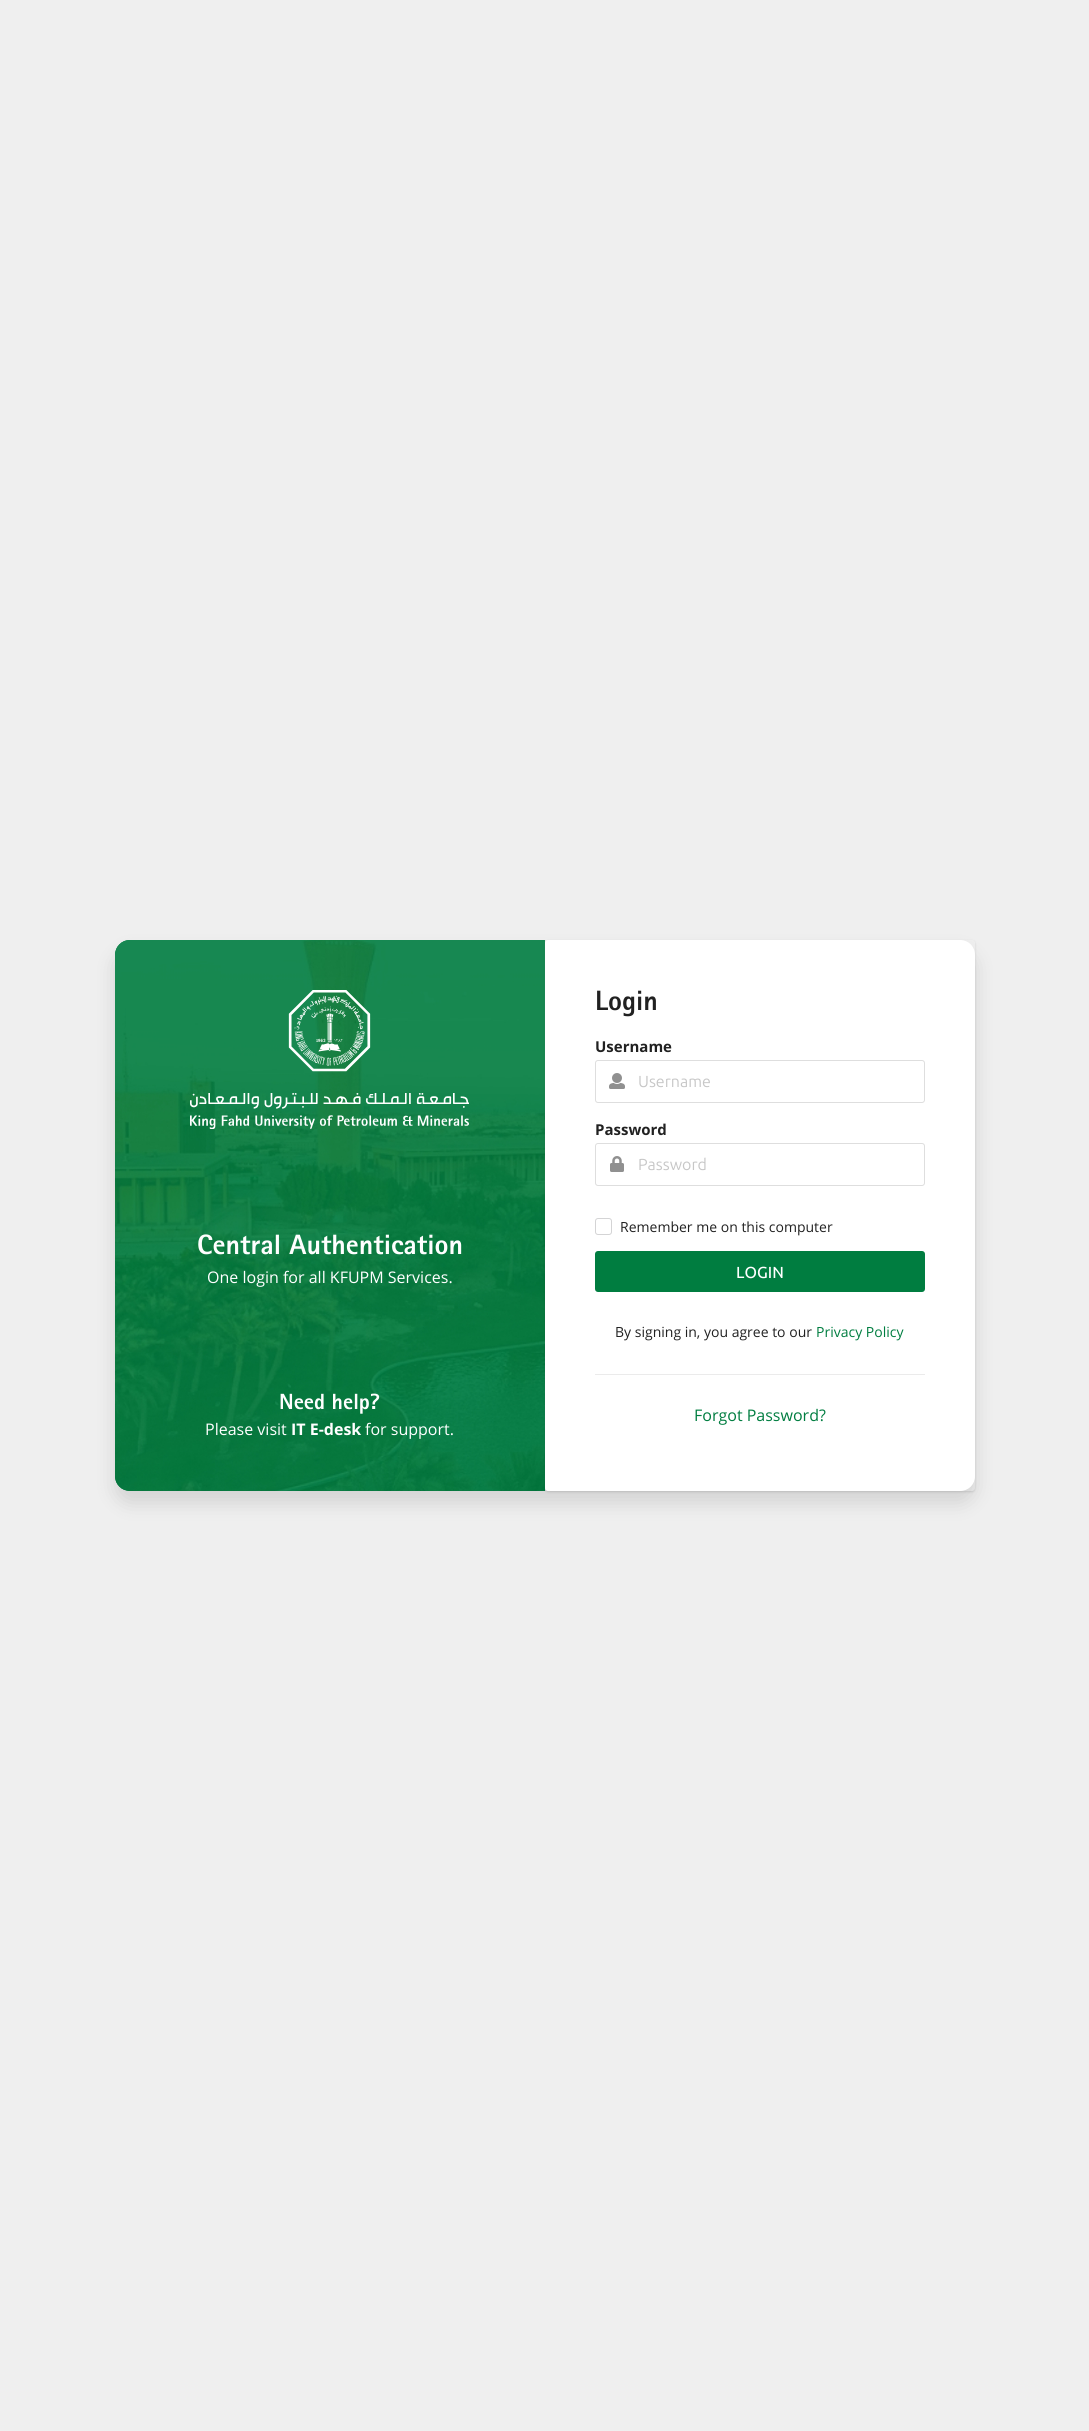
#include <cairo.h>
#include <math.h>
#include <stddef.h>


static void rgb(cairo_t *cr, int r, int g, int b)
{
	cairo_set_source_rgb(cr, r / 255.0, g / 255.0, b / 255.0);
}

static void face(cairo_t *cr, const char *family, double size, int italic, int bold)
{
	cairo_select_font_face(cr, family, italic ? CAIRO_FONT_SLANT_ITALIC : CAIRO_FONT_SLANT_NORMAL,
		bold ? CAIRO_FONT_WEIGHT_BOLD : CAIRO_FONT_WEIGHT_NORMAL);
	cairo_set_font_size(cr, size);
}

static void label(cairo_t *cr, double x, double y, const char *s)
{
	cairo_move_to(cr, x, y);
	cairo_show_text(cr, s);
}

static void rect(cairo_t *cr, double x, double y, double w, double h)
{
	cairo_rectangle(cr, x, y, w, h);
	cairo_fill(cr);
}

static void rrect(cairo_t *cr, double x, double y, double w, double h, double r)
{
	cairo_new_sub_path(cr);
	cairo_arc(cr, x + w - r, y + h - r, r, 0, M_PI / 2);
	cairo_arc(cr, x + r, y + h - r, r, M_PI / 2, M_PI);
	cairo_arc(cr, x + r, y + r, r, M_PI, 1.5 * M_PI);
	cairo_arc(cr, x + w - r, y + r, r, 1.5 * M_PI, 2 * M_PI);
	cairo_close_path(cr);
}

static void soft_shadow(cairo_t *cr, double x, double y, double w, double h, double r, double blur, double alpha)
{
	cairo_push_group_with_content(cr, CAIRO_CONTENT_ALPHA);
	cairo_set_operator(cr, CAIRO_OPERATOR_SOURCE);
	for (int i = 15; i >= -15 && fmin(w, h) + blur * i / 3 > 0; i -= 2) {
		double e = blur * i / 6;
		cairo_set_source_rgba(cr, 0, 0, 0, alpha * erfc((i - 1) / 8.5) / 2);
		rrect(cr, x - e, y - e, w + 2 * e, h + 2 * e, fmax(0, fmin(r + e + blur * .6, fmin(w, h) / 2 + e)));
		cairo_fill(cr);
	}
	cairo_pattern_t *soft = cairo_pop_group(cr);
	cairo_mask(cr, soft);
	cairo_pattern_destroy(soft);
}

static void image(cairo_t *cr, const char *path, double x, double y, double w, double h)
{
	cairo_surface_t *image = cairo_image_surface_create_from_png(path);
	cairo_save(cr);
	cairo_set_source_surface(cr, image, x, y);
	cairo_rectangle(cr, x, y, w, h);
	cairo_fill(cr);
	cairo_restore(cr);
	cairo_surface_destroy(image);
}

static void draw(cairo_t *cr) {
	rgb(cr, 239, 239, 239);
	cairo_paint(cr);
	rgb(cr, 0, 0, 0);
	soft_shadow(cr, 115, 952, 860, 551, 15, 10, 0.12);
	rgb(cr, 0, 125, 64);
	cairo_new_path(cr);
	cairo_move_to(cr, 130, 940);
	cairo_line_to(cr, 545, 940);
	cairo_line_to(cr, 545, 1491);
	cairo_line_to(cr, 130, 1491);
	cairo_curve_to(cr, 121.5, 1491, 115, 1484.5, 115, 1476);
	cairo_line_to(cr, 115, 955);
	cairo_curve_to(cr, 115, 946.5, 121.5, 940, 130, 940);
	cairo_close_path(cr);
	cairo_fill(cr);
	image(cr, "image0.png", 115, 940, 430, 551);
	image(cr, "image1.png", 190, 990, 279, 139);
	face(cr, "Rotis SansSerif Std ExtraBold", 28, 0, 0);
	rgb(cr, 255, 255, 255);
	label(cr, 197, 1254, "Central Authentication");
	face(cr, "Open Sans", 16, 0, 0);
	label(cr, 207, 1283, "One login for all KFUPM Services.");
	face(cr, "Rotis SansSerif Std ExtraBold", 22, 0, 0);
	label(cr, 279, 1409, "Need help?");
	face(cr, "Open Sans", 16, 0, 0);
	label(cr, 205, 1435, "Please visit");
	face(cr, "Open Sans", 16, 0, 1);
	label(cr, 291, 1435, "IT E-desk");
	face(cr, "Open Sans", 16, 0, 0);
	label(cr, 365, 1435, "for support.");
	cairo_save(cr);
	cairo_set_fill_rule(cr, CAIRO_FILL_RULE_EVEN_ODD);
	cairo_new_path(cr);
	cairo_move_to(cr, 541, 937);
	cairo_line_to(cr, 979, 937);
	cairo_line_to(cr, 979, 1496);
	cairo_line_to(cr, 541, 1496);
	cairo_close_path(cr);
	cairo_move_to(cr, 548, 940);
	cairo_line_to(cr, 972, 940);
	cairo_curve_to(cr, 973.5, 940, 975, 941.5, 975, 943);
	cairo_line_to(cr, 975, 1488);
	cairo_curve_to(cr, 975, 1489.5, 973.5, 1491, 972, 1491);
	cairo_line_to(cr, 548, 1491);
	cairo_curve_to(cr, 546.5, 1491, 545, 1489.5, 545, 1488);
	cairo_line_to(cr, 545, 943);
	cairo_curve_to(cr, 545, 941.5, 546.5, 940, 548, 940);
	cairo_close_path(cr);
	cairo_clip(cr);
	rgb(cr, 34, 36, 38);
	soft_shadow(cr, 545, 941, 430, 551, 3, 1, 0.15);
	cairo_restore(cr);
	cairo_new_path(cr);
	cairo_move_to(cr, 548, 940);
	cairo_line_to(cr, 960, 940);
	cairo_curve_to(cr, 968.5, 940, 975, 946.5, 975, 955);
	cairo_line_to(cr, 975, 1476);
	cairo_curve_to(cr, 975, 1484.5, 968.5, 1491, 960, 1491);
	cairo_line_to(cr, 548, 1491);
	cairo_curve_to(cr, 546.5, 1491, 545, 1489.5, 545, 1488);
	cairo_line_to(cr, 545, 943);
	cairo_curve_to(cr, 545, 941.5, 546.5, 940, 548, 940);
	cairo_close_path(cr);
	cairo_fill(cr);
	face(cr, "Rotis SansSerif Std ExtraBold", 28, 0, 0);
	rgb(cr, 33, 33, 33);
	label(cr, 595, 1010, "Login");
	face(cr, "Open Sans", 15, 0, 1);
	label(cr, 595, 1052, "Username");
	rrect(cr, 595.5, 1060.5, 329, 42, 2.5);
	rgb(cr, 222, 222, 222);
	cairo_set_line_width(cr, 1);
	cairo_stroke(cr);
	image(cr, "image2.png", 609, 1073, 16, 16);
	face(cr, "Ubuntu", 16, 0, 0);
	rgb(cr, 199, 199, 199);
	label(cr, 638, 1087, "Username");
	face(cr, "Open Sans", 15, 0, 1);
	rgb(cr, 33, 33, 33);
	label(cr, 595, 1135, "Password");
	rrect(cr, 595.5, 1143.5, 329, 42, 2.5);
	rgb(cr, 222, 222, 222);
	cairo_stroke(cr);
	image(cr, "image3.png", 610, 1156, 14, 16);
	face(cr, "Ubuntu", 16, 0, 0);
	rgb(cr, 199, 199, 199);
	label(cr, 638, 1170, "Password");
	rrect(cr, 595.5, 1218.5, 16, 16, 2.5);
	rgb(cr, 212, 212, 213);
	cairo_stroke(cr);
	face(cr, "Open Sans", 14, 0, 0);
	rgb(cr, 33, 33, 33);
	label(cr, 620, 1232, "Remember me on this computer");
	rgb(cr, 0, 125, 64);
	rrect(cr, 595, 1251, 330, 41, 3);
	cairo_fill(cr);
	face(cr, "Ubuntu Medium", 16, 0, 0);
	rgb(cr, 255, 255, 255);
	label(cr, 736, 1278, "LOGIN");
	face(cr, "Open Sans", 14, 0, 0);
	rgb(cr, 33, 33, 33);
	label(cr, 615, 1337, "By signing in, you agree to our");
	rgb(cr, 0, 125, 64);
	label(cr, 816, 1337, "Privacy Policy");
	rgb(cr, 235, 235, 235);
	rect(cr, 595, 1374, 330, 1);
	face(cr, "Open Sans", 16, 0, 0);
	rgb(cr, 0, 125, 64);
	label(cr, 694, 1421, "Forgot Password?");
}

int main(void) {
	cairo_surface_t *surface = cairo_image_surface_create(CAIRO_FORMAT_RGB24, 1089, 2431);
	cairo_t *cr = cairo_create(surface);
	cairo_font_options_t *options = cairo_font_options_create();
	cairo_font_options_set_hint_metrics(options, CAIRO_HINT_METRICS_OFF);
	cairo_font_options_set_hint_style(options, CAIRO_HINT_STYLE_NONE);
	cairo_set_font_options(cr, options);
	cairo_set_miter_limit(cr, 4);
	draw(cr);
	cairo_surface_write_to_png(surface, "render.png");
	cairo_font_options_destroy(options);
	cairo_destroy(cr);
	cairo_surface_destroy(surface);
	return 0;
}
